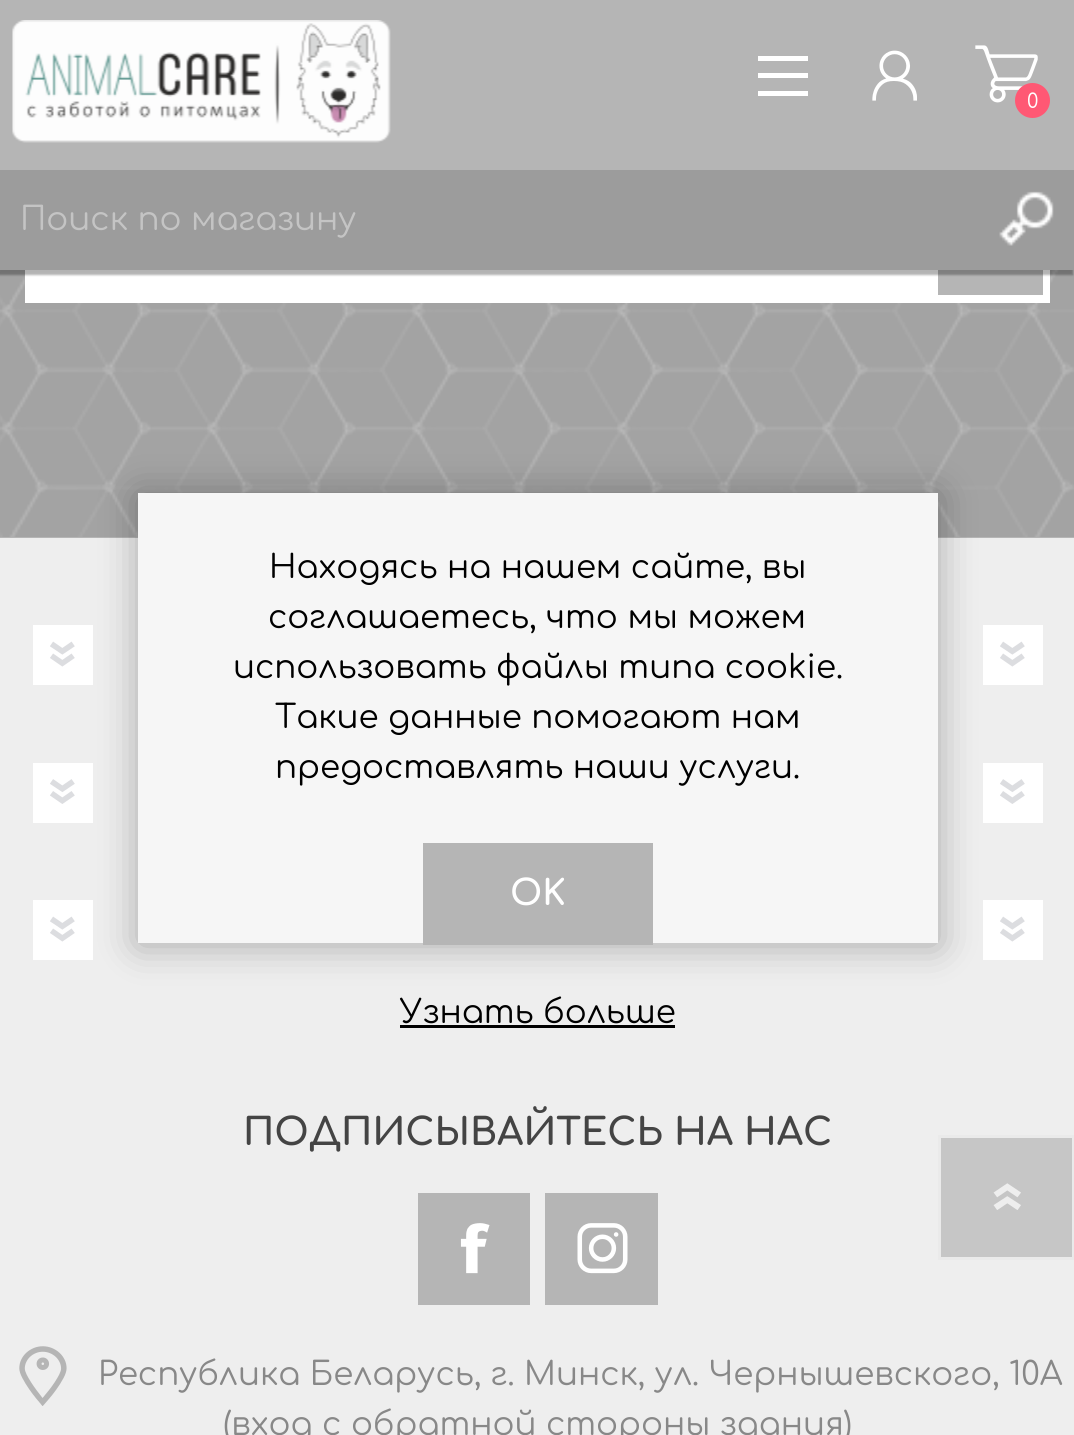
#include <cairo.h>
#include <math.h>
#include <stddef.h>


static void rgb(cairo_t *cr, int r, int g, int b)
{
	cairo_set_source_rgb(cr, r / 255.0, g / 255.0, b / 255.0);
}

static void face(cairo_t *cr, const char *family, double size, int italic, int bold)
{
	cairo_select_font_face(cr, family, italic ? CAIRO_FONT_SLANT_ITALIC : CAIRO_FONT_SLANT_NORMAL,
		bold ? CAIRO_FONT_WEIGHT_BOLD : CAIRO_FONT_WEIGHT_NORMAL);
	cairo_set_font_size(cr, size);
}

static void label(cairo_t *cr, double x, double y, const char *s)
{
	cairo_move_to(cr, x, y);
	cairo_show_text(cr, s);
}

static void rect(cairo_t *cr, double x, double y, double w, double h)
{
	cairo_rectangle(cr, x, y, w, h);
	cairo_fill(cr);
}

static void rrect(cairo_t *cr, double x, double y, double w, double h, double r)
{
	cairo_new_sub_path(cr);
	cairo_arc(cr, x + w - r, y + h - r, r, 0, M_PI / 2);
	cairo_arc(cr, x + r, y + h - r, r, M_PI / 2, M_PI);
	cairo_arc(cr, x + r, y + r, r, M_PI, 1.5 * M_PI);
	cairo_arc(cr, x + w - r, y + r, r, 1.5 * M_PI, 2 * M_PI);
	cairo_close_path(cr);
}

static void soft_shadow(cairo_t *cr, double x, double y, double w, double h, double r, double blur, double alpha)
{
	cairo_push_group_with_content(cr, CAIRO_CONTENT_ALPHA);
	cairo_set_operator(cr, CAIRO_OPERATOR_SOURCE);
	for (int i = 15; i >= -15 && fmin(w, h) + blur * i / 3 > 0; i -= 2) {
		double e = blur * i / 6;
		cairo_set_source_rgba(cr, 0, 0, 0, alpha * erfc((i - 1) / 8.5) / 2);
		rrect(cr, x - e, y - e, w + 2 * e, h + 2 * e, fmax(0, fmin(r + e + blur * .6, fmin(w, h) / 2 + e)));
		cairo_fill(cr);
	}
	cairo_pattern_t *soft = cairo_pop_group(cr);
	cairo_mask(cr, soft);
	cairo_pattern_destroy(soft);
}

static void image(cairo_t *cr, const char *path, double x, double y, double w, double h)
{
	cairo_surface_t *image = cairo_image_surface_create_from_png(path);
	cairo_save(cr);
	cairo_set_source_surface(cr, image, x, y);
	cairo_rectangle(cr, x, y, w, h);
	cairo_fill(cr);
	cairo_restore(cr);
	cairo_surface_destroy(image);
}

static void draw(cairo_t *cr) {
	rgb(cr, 238, 238, 238);
	cairo_paint(cr);
	rgb(cr, 181, 181, 181);
	rect(cr, 0, 0, 1074, 170);
	rgb(cr, 255, 255, 255);
	cairo_new_path(cr);
	cairo_move_to(cr, 758, 56);
	cairo_line_to(cr, 758, 61);
	cairo_line_to(cr, 808, 61);
	cairo_line_to(cr, 808, 56);
	cairo_close_path(cr);
	cairo_move_to(cr, 758, 78);
	cairo_line_to(cr, 808, 78);
	cairo_line_to(cr, 808, 73);
	cairo_line_to(cr, 758, 73);
	cairo_close_path(cr);
	cairo_move_to(cr, 758, 96);
	cairo_line_to(cr, 808, 96);
	cairo_line_to(cr, 808, 91);
	cairo_line_to(cr, 758, 91);
	cairo_close_path(cr);
	cairo_fill(cr);
	image(cr, "image0.png", 872, 50, 45, 51);
	image(cr, "image1.png", 975, 45, 63, 58);
	rgb(cr, 255, 88, 116);
	cairo_arc(cr, 1032.5, 100.5, 17.5, 0, 2 * M_PI);
	cairo_fill(cr);
	face(cr, "Comfortaa", 20, 0, 0);
	rgb(cr, 255, 255, 255);
	label(cr, 1027, 108, "0");
	image(cr, "image2.png", 12, 20, 379, 123);
	rgb(cr, 181, 181, 181);
	rect(cr, 0, 270, 1074, 268);
	image(cr, "image4.png", 0, 270, 1074, 267);
	rgb(cr, 255, 255, 255);
	rect(cr, 25, 270, 1025, 33);
	rgb(cr, 181, 181, 181);
	rect(cr, 938, 270, 105, 25);
	rgb(cr, 0, 0, 0);
	soft_shadow(cr, -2, 175, 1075, 100, 0, 1, 0.3);
	rgb(cr, 156, 156, 156);
	rect(cr, 0, 170, 1074, 100);
	face(cr, "Comfortaa", 32.5, 0, 0);
	rgb(cr, 196, 196, 196);
	label(cr, 20, 230, "Поиск по магазину");
	image(cr, "image3.png", 999, 191, 55, 55);
	rgb(cr, 255, 255, 255);
	rect(cr, 33, 625, 60, 60);
	rect(cr, 983, 625, 60, 60);
	rect(cr, 33, 763, 60, 60);
	rect(cr, 983, 763, 60, 60);
	rect(cr, 33, 900, 60, 60);
	rect(cr, 983, 900, 60, 60);
	rgb(cr, 0, 0, 0);
	soft_shadow(cr, 138, 495, 800, 450, 0, 19, 0.3);
	rgb(cr, 246, 246, 246);
	rect(cr, 138, 493, 800, 450);
	rgb(cr, 0, 0, 0);
	label(cr, 269, 578, "Находясь на нашем сайте, вы");
	label(cr, 268, 628, "соглашаетесь, что мы можем");
	label(cr, 233, 678, "использовать файлы типа cookie.");
	label(cr, 275, 728, "Такие данные помогают нам");
	label(cr, 275, 778, "предоставлять наши услуги.");
	rgb(cr, 181, 181, 181);
	rect(cr, 423, 843, 230, 102);
	face(cr, "Comfortaa", 35, 0, 1);
	rgb(cr, 255, 255, 255);
	label(cr, 510, 905, "OK");
	face(cr, "Comfortaa", 32.5, 0, 0);
	rgb(cr, 0, 0, 0);
	label(cr, 400, 1023, "Узнать больше");
	rect(cr, 400, 1025, 275, 3);
	image(cr, "image5.png", 50, 641, 25, 26);
	image(cr, "image5.png", 1000, 641, 25, 26);
	image(cr, "image6.png", 50, 779, 25, 25);
	image(cr, "image6.png", 1000, 779, 25, 25);
	image(cr, "image5.png", 50, 916, 25, 26);
	image(cr, "image5.png", 1000, 916, 25, 26);
	face(cr, "Comfortaa", 37.5, 0, 1);
	rgb(cr, 68, 68, 68);
	label(cr, 243, 1145, "ПОДПИСЫВАЙТЕСЬ НА НАС");
	rgb(cr, 181, 181, 181);
	rect(cr, 418, 1193, 112, 112);
	image(cr, "image7.png", 460, 1223, 30, 51);
	rect(cr, 545, 1193, 113, 112);
	image(cr, "image8.png", 577, 1223, 51, 51);
	image(cr, "image9.png", 19, 1346, 48, 60);
	face(cr, "Comfortaa", 32.5, 0, 0);
	rgb(cr, 136, 136, 136);
	label(cr, 98, 1385, "Республика Беларусь, г. Минск, ул. Чернышевского, 10А");
	label(cr, 223, 1435, "(вход с обратной стороны здания)");
	rgb(cr, 198, 198, 198);
	cairo_rectangle(cr, 939.5, 1136.5, 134, 122);
	cairo_fill_preserve(cr);
	rgb(cr, 234, 234, 234);
	cairo_set_line_width(cr, 3);
	cairo_stroke(cr);
	image(cr, "image10.png", 993, 1183, 28, 27);
}

int main(void) {
	cairo_surface_t *surface = cairo_image_surface_create(CAIRO_FORMAT_RGB24, 1074, 1435);
	cairo_t *cr = cairo_create(surface);
	cairo_font_options_t *options = cairo_font_options_create();
	cairo_font_options_set_hint_metrics(options, CAIRO_HINT_METRICS_OFF);
	cairo_font_options_set_hint_style(options, CAIRO_HINT_STYLE_NONE);
	cairo_set_font_options(cr, options);
	cairo_set_miter_limit(cr, 4);
	draw(cr);
	cairo_surface_write_to_png(surface, "render.png");
	cairo_font_options_destroy(options);
	cairo_destroy(cr);
	cairo_surface_destroy(surface);
	return 0;
}
